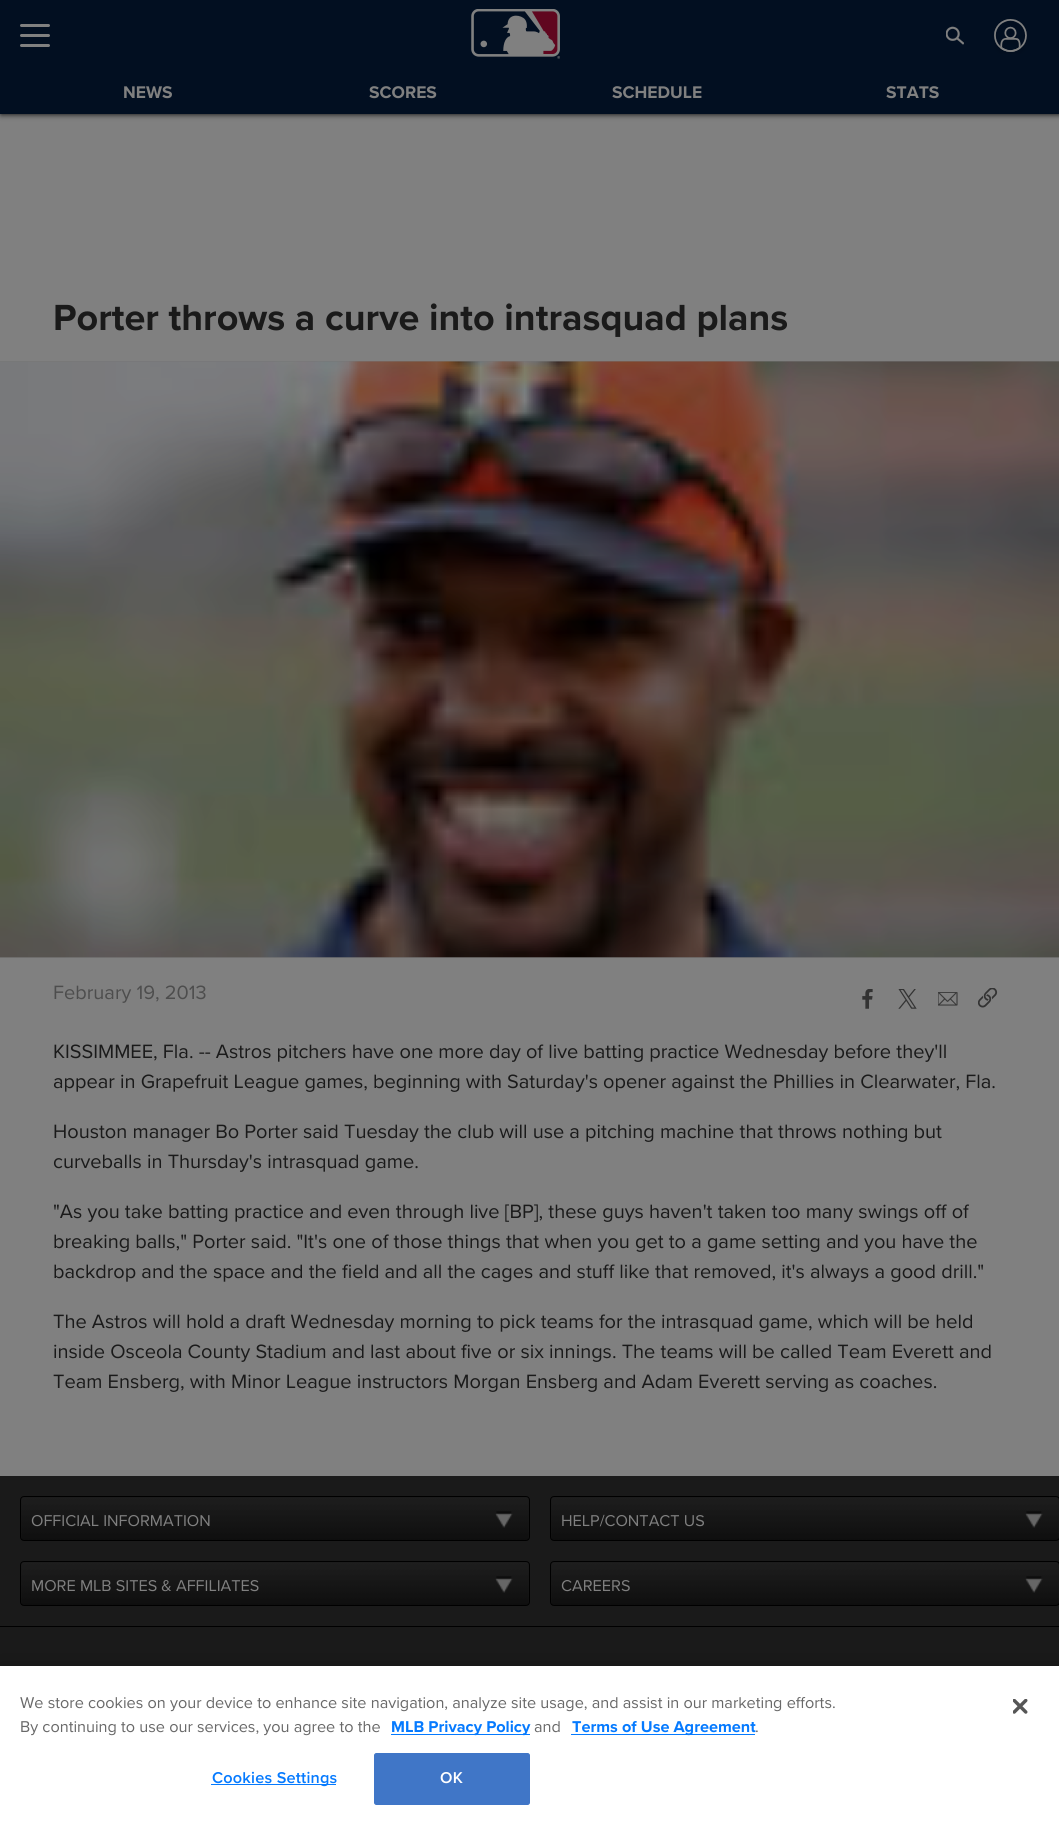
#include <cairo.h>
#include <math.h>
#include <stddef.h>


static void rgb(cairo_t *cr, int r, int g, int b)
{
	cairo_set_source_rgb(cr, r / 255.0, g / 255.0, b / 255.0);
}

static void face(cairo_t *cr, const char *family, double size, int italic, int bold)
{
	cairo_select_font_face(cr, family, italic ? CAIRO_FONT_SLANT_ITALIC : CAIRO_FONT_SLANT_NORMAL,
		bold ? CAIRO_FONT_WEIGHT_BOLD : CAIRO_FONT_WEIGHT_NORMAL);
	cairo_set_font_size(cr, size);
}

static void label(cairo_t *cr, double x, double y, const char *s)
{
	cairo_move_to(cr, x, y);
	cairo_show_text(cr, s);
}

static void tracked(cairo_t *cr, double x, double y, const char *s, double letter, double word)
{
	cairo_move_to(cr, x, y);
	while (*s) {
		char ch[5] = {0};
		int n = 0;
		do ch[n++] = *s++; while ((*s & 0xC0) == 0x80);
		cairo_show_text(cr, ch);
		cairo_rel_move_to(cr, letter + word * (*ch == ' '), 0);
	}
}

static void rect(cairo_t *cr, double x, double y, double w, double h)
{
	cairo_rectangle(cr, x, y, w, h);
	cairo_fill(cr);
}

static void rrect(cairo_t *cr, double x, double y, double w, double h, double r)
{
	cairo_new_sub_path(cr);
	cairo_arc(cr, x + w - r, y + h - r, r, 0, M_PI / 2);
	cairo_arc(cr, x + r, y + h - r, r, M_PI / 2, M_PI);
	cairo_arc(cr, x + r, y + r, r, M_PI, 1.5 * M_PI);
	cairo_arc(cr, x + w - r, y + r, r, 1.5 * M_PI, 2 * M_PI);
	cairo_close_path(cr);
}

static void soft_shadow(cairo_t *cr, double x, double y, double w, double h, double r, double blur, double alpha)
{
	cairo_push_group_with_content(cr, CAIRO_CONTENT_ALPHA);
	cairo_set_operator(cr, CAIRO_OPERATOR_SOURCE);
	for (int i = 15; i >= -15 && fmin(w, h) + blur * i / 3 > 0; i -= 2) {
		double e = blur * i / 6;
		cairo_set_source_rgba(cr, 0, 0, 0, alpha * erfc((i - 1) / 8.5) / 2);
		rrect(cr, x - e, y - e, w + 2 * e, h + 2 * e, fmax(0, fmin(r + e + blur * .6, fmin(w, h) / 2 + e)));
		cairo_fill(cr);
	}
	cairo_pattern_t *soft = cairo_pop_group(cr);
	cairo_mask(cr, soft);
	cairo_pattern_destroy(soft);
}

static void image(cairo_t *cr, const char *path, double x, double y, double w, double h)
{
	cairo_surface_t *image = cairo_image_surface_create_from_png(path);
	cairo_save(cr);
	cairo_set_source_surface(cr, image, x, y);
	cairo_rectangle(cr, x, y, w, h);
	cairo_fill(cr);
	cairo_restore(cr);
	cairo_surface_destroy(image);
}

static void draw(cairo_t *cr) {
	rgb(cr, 128, 128, 128);
	cairo_paint(cr);
	rgb(cr, 0, 0, 0);
	soft_shadow(cr, 1, 0, 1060, 114, 0, 3, 1);
	rgb(cr, 2, 15, 33);
	rect(cr, 0, 0, 1059, 114);
	rgb(cr, 128, 128, 128);
	rrect(cr, 20, 24, 30, 3, 1.5);
	cairo_fill(cr);
	rrect(cr, 20, 34, 30, 3, 1.5);
	cairo_fill(cr);
	rrect(cr, 20, 44, 30, 3, 1.5);
	cairo_fill(cr);
	image(cr, "image0.png", 471, 9, 89, 50);
	image(cr, "image1.png", 946, 26, 18, 19);
	image(cr, "image2.png", 994, 19, 33, 35);
	face(cr, "Proxima Nova", 17.5, 0, 1);
	label(cr, 123, 98, "NEWS");
	label(cr, 369, 98, "SCORES");
	label(cr, 612, 98, "SCHEDULE");
	label(cr, 886, 98, "STATS");
	face(cr, "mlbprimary", 37.7, 0, 1);
	rgb(cr, 26, 26, 26);
	label(cr, 53, 330, "Porter throws a curve into intrasquad plans");
	rgb(cr, 118, 118, 118);
	rect(cr, 0, 361, 1059, 597);
	image(cr, "image3.png", 0, 361, 1059, 597);
	face(cr, "mlbprimary", 20, 0, 0);
	rgb(cr, 77, 77, 77);
	label(cr, 53, 999, "February 19, 2013");
	image(cr, "image4.png", 862, 989, 11, 20);
	image(cr, "image5.png", 898, 989, 19, 20);
	image(cr, "image6.png", 938, 992, 20, 14);
	image(cr, "image7.png", 978, 988, 20, 20);
	rgb(cr, 26, 26, 26);
	label(cr, 53, 1058, "KISSIMMEE, Fla. -- Astros pitchers have one more day of live batting practice Wednesday before they'll");
	label(cr, 53, 1088, "appear in Grapefruit League games, beginning with Saturday's opener against the Phillies in Clearwater, Fla.");
	label(cr, 53, 1138, "Houston manager Bo Porter said Tuesday the club will use a pitching machine that throws nothing but");
	label(cr, 53, 1168, "curveballs in Thursday's intrasquad game.");
	label(cr, 53, 1218, "\"As you take batting practice and even through live [BP], these guys haven't taken too many swings off of");
	label(cr, 53, 1248, "breaking balls,\" Porter said. \"It's one of those things that when you get to a game setting and you have the");
	label(cr, 53, 1278, "backdrop and the space and the field and all the cages and stuff like that removed, it's always a good drill.\"");
	label(cr, 53, 1328, "The Astros will hold a draft Wednesday morning to pick teams for the intrasquad game, which will be held");
	label(cr, 53, 1358, "inside Osceola County Stadium and last about five or six innings. The teams will be called Team Everett and");
	label(cr, 53, 1388, "Team Ensberg, with Minor League instructors Morgan Ensberg and Adam Everett serving as coaches.");
	rect(cr, 0, 1476, 1059, 190);
	image(cr, "image8.png", 21, 1497, 508, 43);
	rrect(cr, 20.5, 1496.5, 509, 44, 3.5);
	rgb(cr, 0, 0, 0);
	cairo_set_line_width(cr, 1);
	cairo_stroke(cr);
	face(cr, "Proxima Nova", 16.25, 0, 0);
	rgb(cr, 128, 128, 128);
	label(cr, 31, 1526, "OFFICIAL INFORMATION");
	image(cr, "image9.png", 551, 1497, 508, 43);
	rrect(cr, 550.5, 1496.5, 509, 44, 3.5);
	rgb(cr, 0, 0, 0);
	cairo_stroke(cr);
	rgb(cr, 128, 128, 128);
	label(cr, 561, 1526, "HELP/CONTACT US");
	image(cr, "image10.png", 21, 1562, 508, 43);
	rrect(cr, 20.5, 1561.5, 509, 44, 3.5);
	rgb(cr, 0, 0, 0);
	cairo_stroke(cr);
	rgb(cr, 128, 128, 128);
	label(cr, 31, 1591, "MORE MLB SITES & AFFILIATES");
	image(cr, "image11.png", 551, 1562, 508, 43);
	rrect(cr, 550.5, 1561.5, 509, 44, 3.5);
	rgb(cr, 0, 0, 0);
	cairo_stroke(cr);
	rgb(cr, 128, 128, 128);
	label(cr, 561, 1591, "CAREERS");
	rgb(cr, 0, 0, 0);
	rect(cr, 0, 1626, 1059, 1);
	rgb(cr, 0, 0, 0);
	soft_shadow(cr, 0, 1666, 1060, 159, 0, 11, 0.2);
	rgb(cr, 255, 255, 255);
	rect(cr, 0, 1666, 1059, 158);
	face(cr, "mlbprimary", 16.25, 0, 0);
	rgb(cr, 105, 105, 105);
	label(cr, 20, 1708, "We store cookies on your device to enhance site navigation, analyze site usage, and assist in our marketing efforts.");
	label(cr, 20, 1732, "By continuing to use our services, you agree to the");
	rgb(cr, 5, 122, 255);
	rect(cr, 391, 1734, 139, 1);
	face(cr, "mlbprimary", 16.25, 0, 1);
	label(cr, 391, 1732, "MLB Privacy Policy");
	face(cr, "mlbprimary", 16.25, 0, 0);
	rgb(cr, 105, 105, 105);
	label(cr, 534, 1732, "and");
	rgb(cr, 5, 122, 255);
	rect(cr, 571, 1734, 184, 1);
	face(cr, "mlbprimary", 16.25, 0, 1);
	label(cr, 572, 1732, "Terms of Use Agreement");
	face(cr, "mlbprimary", 16.25, 0, 0);
	rgb(cr, 105, 105, 105);
	label(cr, 755, 1732, ".");
	rgb(cr, 5, 122, 255);
	rect(cr, 211, 1784, 125, 1);
	face(cr, "Proxima Nova SemiBold", 16.25, 0, 0);
	tracked(cr, 212, 1783, "Cookies Settings", 0.2, 0);
	rgb(cr, 64, 118, 199);
	rrect(cr, 374.5, 1753.5, 155, 51, 2);
	cairo_fill_preserve(cr);
	cairo_stroke(cr);
	rgb(cr, 255, 255, 255);
	tracked(cr, 440, 1783, "OK", 0.2, 0);
	image(cr, "image12.png", 1013, 1699, 15, 15);
}

int main(void) {
	cairo_surface_t *surface = cairo_image_surface_create(CAIRO_FORMAT_RGB24, 1059, 1824);
	cairo_t *cr = cairo_create(surface);
	cairo_font_options_t *options = cairo_font_options_create();
	cairo_font_options_set_hint_metrics(options, CAIRO_HINT_METRICS_OFF);
	cairo_font_options_set_hint_style(options, CAIRO_HINT_STYLE_NONE);
	cairo_set_font_options(cr, options);
	cairo_set_miter_limit(cr, 4);
	draw(cr);
	cairo_surface_write_to_png(surface, "render.png");
	cairo_font_options_destroy(options);
	cairo_destroy(cr);
	cairo_surface_destroy(surface);
	return 0;
}
